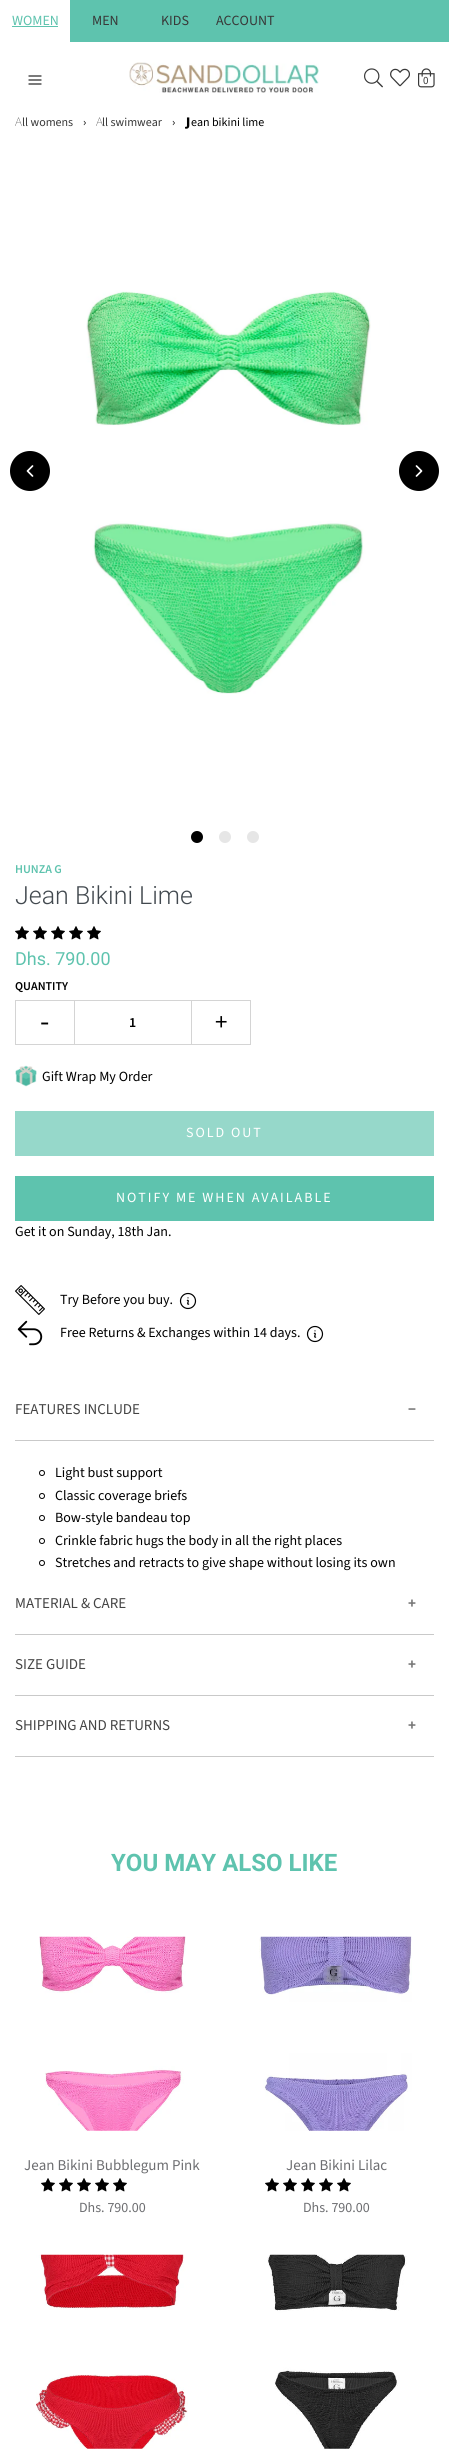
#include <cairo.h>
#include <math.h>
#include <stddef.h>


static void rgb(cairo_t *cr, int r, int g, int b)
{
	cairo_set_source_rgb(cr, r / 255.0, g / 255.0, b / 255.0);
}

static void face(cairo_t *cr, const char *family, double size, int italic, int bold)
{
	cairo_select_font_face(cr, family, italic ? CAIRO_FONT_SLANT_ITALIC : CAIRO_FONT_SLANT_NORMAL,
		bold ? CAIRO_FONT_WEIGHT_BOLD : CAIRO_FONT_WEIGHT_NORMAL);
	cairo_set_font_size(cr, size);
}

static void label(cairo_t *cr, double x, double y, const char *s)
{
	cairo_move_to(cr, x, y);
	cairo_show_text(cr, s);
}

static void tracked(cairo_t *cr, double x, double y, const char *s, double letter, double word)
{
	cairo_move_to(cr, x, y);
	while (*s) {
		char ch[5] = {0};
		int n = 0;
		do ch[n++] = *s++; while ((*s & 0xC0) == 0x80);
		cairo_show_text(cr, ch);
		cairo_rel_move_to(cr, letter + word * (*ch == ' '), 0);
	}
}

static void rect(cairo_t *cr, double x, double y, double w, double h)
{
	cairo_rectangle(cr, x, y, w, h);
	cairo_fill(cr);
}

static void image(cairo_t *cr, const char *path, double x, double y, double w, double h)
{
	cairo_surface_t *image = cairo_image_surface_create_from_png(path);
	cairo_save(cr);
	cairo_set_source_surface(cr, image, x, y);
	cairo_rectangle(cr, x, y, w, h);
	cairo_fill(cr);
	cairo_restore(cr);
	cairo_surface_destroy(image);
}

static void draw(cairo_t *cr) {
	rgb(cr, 255, 255, 255);
	cairo_paint(cr);
	rgb(cr, 94, 195, 174);
	rect(cr, 70, 0, 379, 42);
	face(cr, "Source Sans Pro", 14, 0, 0);
	label(cr, 12, 25, "WOMEN");
	rect(cr, 12, 26, 46, 1);
	rgb(cr, 56, 56, 56);
	label(cr, 92, 25, "MEN");
	label(cr, 161, 25, "KIDS");
	label(cr, 216, 25, "ACCOUNT");
	image(cr, "image0.png", 28, 75, 14, 10);
	image(cr, "image1.png", 129, 62, 190, 31);
	image(cr, "image2.png", 364, 68, 19, 20);
	image(cr, "image3.png", 390, 68, 20, 19);
	image(cr, "image4.png", 418, 68, 17, 20);
	face(cr, "Source Sans Pro", 11, 0, 0);
	label(cr, 423, 84, "0");
	face(cr, "Noto Sans Thin", 12, 0, 0);
	label(cr, 15, 126, "A");
	face(cr, "Source Sans Pro", 12, 0, 0);
	label(cr, 22, 126, "ll womens");
	rgb(cr, 0, 0, 0);
	label(cr, 83, 126, "›");
	face(cr, "Noto Sans Thin", 12, 0, 0);
	rgb(cr, 56, 56, 56);
	label(cr, 96, 126, "A");
	face(cr, "Source Sans Pro", 12, 0, 0);
	label(cr, 102, 126, "ll swimwear");
	rgb(cr, 0, 0, 0);
	label(cr, 172, 126, "›");
	face(cr, "Noto Sans Black", 12, 0, 0);
	label(cr, 186, 126, "J");
	face(cr, "Source Sans Pro", 12, 0, 0);
	label(cr, 191, 126, "ean bikini lime");
	cairo_new_path(cr);
	cairo_arc(cr, 30, 471, 20, 0, 2 * M_PI);
	cairo_fill(cr);
	cairo_new_path(cr);
	cairo_move_to(cr, 32.5, 466);
	cairo_line_to(cr, 27.5, 471);
	cairo_line_to(cr, 32.5, 476);
	rgb(cr, 255, 255, 255);
	cairo_set_line_width(cr, 1.7);
	cairo_set_line_cap(cr, CAIRO_LINE_CAP_ROUND);
	cairo_set_line_join(cr, CAIRO_LINE_JOIN_ROUND);
	cairo_stroke(cr);
	image(cr, "image5.png", 86, 290, 285, 404);
	rgb(cr, 0, 0, 0);
	cairo_arc(cr, 419, 471, 20, 0, 2 * M_PI);
	cairo_fill(cr);
	cairo_new_path(cr);
	cairo_move_to(cr, 416.5, 476);
	cairo_line_to(cr, 421.5, 471);
	cairo_line_to(cr, 416.5, 466);
	rgb(cr, 255, 255, 255);
	cairo_stroke(cr);
	rgb(cr, 0, 0, 0);
	cairo_arc(cr, 197, 837, 6, 0, 2 * M_PI);
	cairo_fill(cr);
	rgb(cr, 230, 230, 230);
	cairo_arc(cr, 225, 837, 6, 0, 2 * M_PI);
	cairo_fill(cr);
	cairo_arc(cr, 253, 837, 6, 0, 2 * M_PI);
	cairo_fill(cr);
	face(cr, "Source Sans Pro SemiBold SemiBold", 12, 0, 0);
	rgb(cr, 94, 195, 174);
	label(cr, 15, 873, "HUNZA G");
	face(cr, "Roboto Light", 25, 0, 0);
	rgb(cr, 66, 73, 79);
	label(cr, 15, 904, "Jean Bikini Lime");
	image(cr, "image6.png", 15, 926, 14, 14);
	image(cr, "image6.png", 33, 926, 14, 14);
	image(cr, "image6.png", 51, 926, 14, 14);
	image(cr, "image6.png", 69, 926, 14, 14);
	image(cr, "image6.png", 87, 926, 14, 14);
	face(cr, "Roboto", 18, 0, 0);
	rgb(cr, 94, 195, 174);
	label(cr, 15, 965, "Dhs. 790.00");
	face(cr, "Source Sans Pro SemiBold SemiBold", 12, 0, 0);
	rgb(cr, 0, 0, 0);
	label(cr, 15, 990, "QUANTITY");
	rgb(cr, 212, 212, 212);
	rect(cr, 15, 1000, 59, 1);
	rect(cr, 15, 1044, 59, 1);
	rect(cr, 15, 1000, 1, 45);
	face(cr, "Source Sans Pro", 30, 0, 0);
	rgb(cr, 0, 0, 0);
	label(cr, 40, 1031, "-");
	cairo_rectangle(cr, 74.5, 1000.5, 117, 44);
	rgb(cr, 212, 212, 212);
	cairo_set_line_width(cr, 1);
	cairo_set_line_cap(cr, CAIRO_LINE_CAP_BUTT);
	cairo_set_line_join(cr, CAIRO_LINE_JOIN_MITER);
	cairo_stroke(cr);
	face(cr, "Source Sans Pro SemiBold SemiBold", 14, 0, 0);
	rgb(cr, 0, 0, 0);
	label(cr, 129, 1027, "1");
	rgb(cr, 212, 212, 212);
	rect(cr, 192, 1000, 59, 1);
	rect(cr, 250, 1000, 1, 45);
	rect(cr, 192, 1044, 59, 1);
	face(cr, "Source Sans Pro", 25, 0, 0);
	rgb(cr, 0, 0, 0);
	label(cr, 215, 1030, "+");
	image(cr, "image7.png", 15, 1065, 22, 22);
	face(cr, "Source Sans Pro", 14, 0, 0);
	label(cr, 42, 1081, "Gift Wrap My Order");
	rgb(cr, 150, 216, 202);
	rect(cr, 15, 1111, 419, 45);
	rgb(cr, 255, 255, 255);
	tracked(cr, 186, 1137, "SOLD OUT", 2, 0);
	rgb(cr, 94, 195, 174);
	rect(cr, 15, 1176, 419, 45);
	rgb(cr, 255, 255, 255);
	tracked(cr, 116, 1202, "NOTIFY ME WHEN AVAILABLE", 2, 0);
	rgb(cr, 0, 0, 0);
	label(cr, 15, 1236, "Get it on Sunday, 18th Jan.");
	image(cr, "image8.png", 15, 1285, 30, 30);
	label(cr, 60, 1304, "Try Before you buy.");
	image(cr, "image9.png", 179, 1292, 18, 18);
	image(cr, "image10.png", 17, 1320, 26, 26);
	label(cr, 60, 1337, "Free Returns & Exchanges within 14 days.");
	image(cr, "image9.png", 306, 1325, 18, 18);
	rgb(cr, 201, 201, 201);
	rect(cr, 15, 1440, 419, 1);
	face(cr, "Source Sans Pro", 15, 0, 0);
	rgb(cr, 68, 68, 68);
	label(cr, 15, 1414, "FEATURES INCLUDE");
	face(cr, "Source Sans Pro", 15, 0, 1);
	rgb(cr, 119, 119, 119);
	label(cr, 408, 1414, "−");
	cairo_new_path(cr);
	cairo_arc(cr, 42, 1473, 2.5, 0, 2 * M_PI);
	rgb(cr, 0, 0, 0);
	cairo_stroke(cr);
	face(cr, "Source Sans Pro", 14, 0, 0);
	label(cr, 55, 1477, "Light bust support");
	cairo_new_path(cr);
	cairo_arc(cr, 42, 1496, 2.5, 0, 2 * M_PI);
	cairo_stroke(cr);
	label(cr, 55, 1500, "Classic coverage briefs");
	cairo_new_path(cr);
	cairo_arc(cr, 42, 1518, 2.5, 0, 2 * M_PI);
	cairo_stroke(cr);
	label(cr, 55, 1522, "Bow-style bandeau top");
	cairo_new_path(cr);
	cairo_arc(cr, 42, 1541, 2.5, 0, 2 * M_PI);
	cairo_stroke(cr);
	label(cr, 55, 1545, "Crinkle fabric hugs the body in all the right places");
	cairo_new_path(cr);
	cairo_arc(cr, 42, 1563, 2.5, 0, 2 * M_PI);
	cairo_stroke(cr);
	label(cr, 55, 1567, "Stretches and retracts to give shape without losing its own");
	rgb(cr, 201, 201, 201);
	rect(cr, 15, 1634, 419, 1);
	face(cr, "Source Sans Pro", 15, 0, 0);
	rgb(cr, 68, 68, 68);
	label(cr, 15, 1608, "MATERIAL & CARE");
	face(cr, "Source Sans Pro", 15, 0, 1);
	rgb(cr, 119, 119, 119);
	label(cr, 408, 1608, "+");
	rgb(cr, 201, 201, 201);
	rect(cr, 15, 1695, 419, 1);
	face(cr, "Source Sans Pro", 15, 0, 0);
	rgb(cr, 68, 68, 68);
	label(cr, 15, 1669, "SIZE GUIDE");
	face(cr, "Source Sans Pro", 15, 0, 1);
	rgb(cr, 119, 119, 119);
	label(cr, 408, 1669, "+");
	rgb(cr, 201, 201, 201);
	rect(cr, 15, 1756, 419, 1);
	face(cr, "Source Sans Pro", 15, 0, 0);
	rgb(cr, 68, 68, 68);
	label(cr, 15, 1730, "SHIPPING AND RETURNS");
	face(cr, "Source Sans Pro", 15, 0, 1);
	rgb(cr, 119, 119, 119);
	label(cr, 408, 1730, "+");
	face(cr, "Roboto", 24, 0, 1);
	rgb(cr, 94, 195, 174);
	label(cr, 111, 1871, "YOU MAY ALSO LIKE");
	image(cr, "image11.png", 39, 1936, 147, 195);
	face(cr, "Source Sans Pro", 15, 0, 0);
	rgb(cr, 109, 110, 113);
	label(cr, 24, 2170, "Jean Bikini Bubblegum Pink");
	image(cr, "image6.png", 41, 2178, 14, 14);
	image(cr, "image6.png", 59, 2178, 14, 14);
	image(cr, "image6.png", 77, 2178, 14, 14);
	image(cr, "image6.png", 95, 2178, 14, 14);
	image(cr, "image6.png", 113, 2178, 14, 14);
	face(cr, "Source Sans Pro", 14, 0, 0);
	label(cr, 79, 2212, "Dhs. 790.00");
	image(cr, "image12.png", 259, 1936, 153, 195);
	face(cr, "Source Sans Pro", 15, 0, 0);
	label(cr, 286, 2170, "Jean Bikini Lilac");
	image(cr, "image6.png", 265, 2178, 14, 14);
	image(cr, "image6.png", 283, 2178, 14, 14);
	image(cr, "image6.png", 301, 2178, 14, 14);
	image(cr, "image6.png", 319, 2178, 14, 14);
	image(cr, "image6.png", 337, 2178, 14, 14);
	face(cr, "Source Sans Pro", 14, 0, 0);
	label(cr, 303, 2212, "Dhs. 790.00");
	image(cr, "image13.png", 36, 2254, 152, 195);
	image(cr, "image14.png", 267, 2254, 140, 195);
}

int main(void) {
	cairo_surface_t *surface = cairo_image_surface_create(CAIRO_FORMAT_RGB24, 449, 2455);
	cairo_t *cr = cairo_create(surface);
	cairo_font_options_t *options = cairo_font_options_create();
	cairo_font_options_set_hint_metrics(options, CAIRO_HINT_METRICS_OFF);
	cairo_font_options_set_hint_style(options, CAIRO_HINT_STYLE_NONE);
	cairo_set_font_options(cr, options);
	cairo_set_miter_limit(cr, 4);
	draw(cr);
	cairo_surface_write_to_png(surface, "render.png");
	cairo_font_options_destroy(options);
	cairo_destroy(cr);
	cairo_surface_destroy(surface);
	return 0;
}
